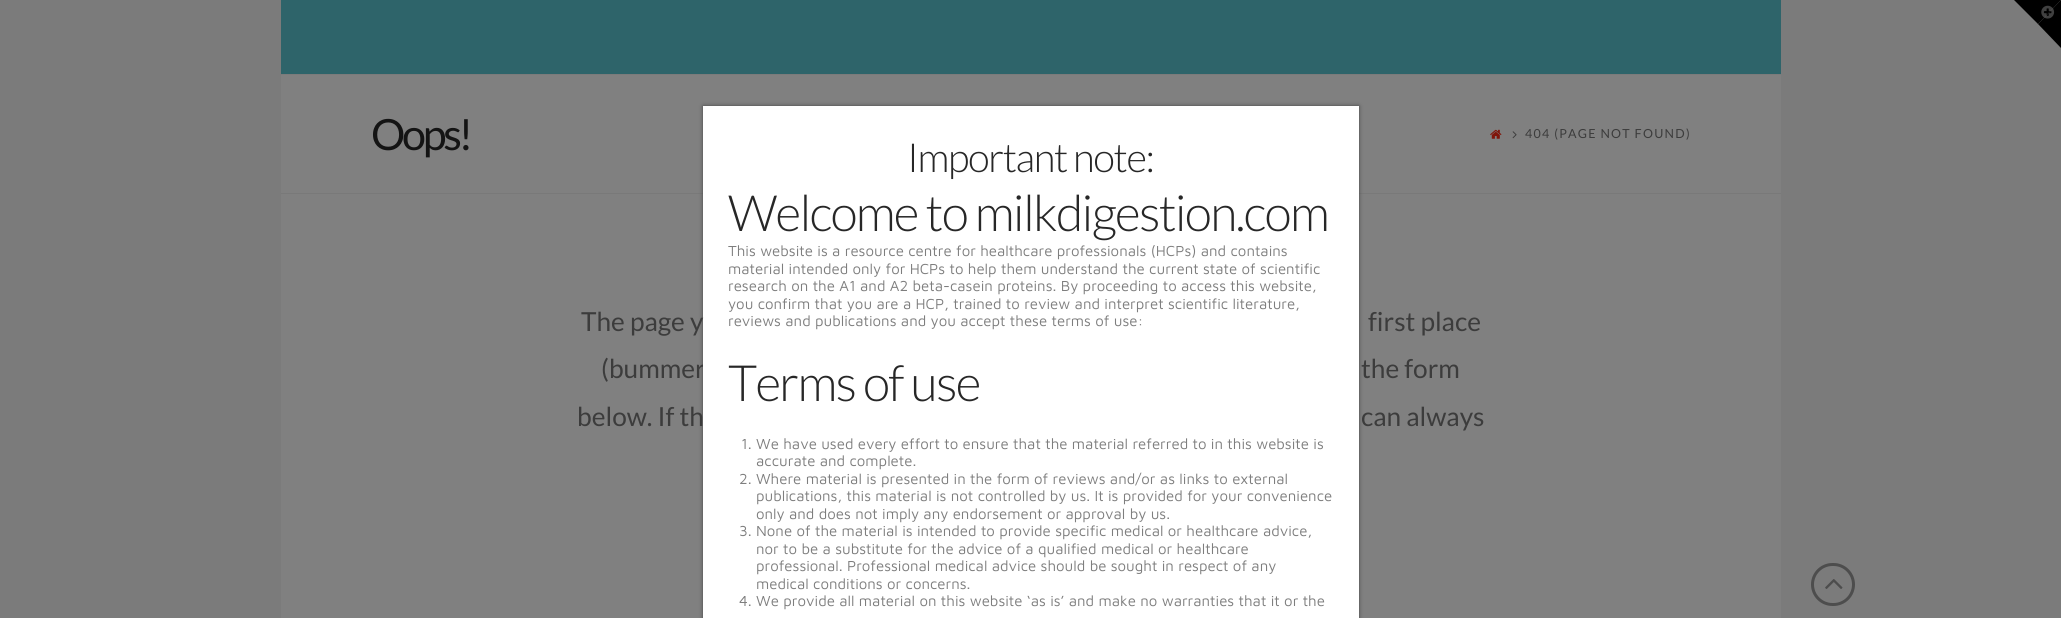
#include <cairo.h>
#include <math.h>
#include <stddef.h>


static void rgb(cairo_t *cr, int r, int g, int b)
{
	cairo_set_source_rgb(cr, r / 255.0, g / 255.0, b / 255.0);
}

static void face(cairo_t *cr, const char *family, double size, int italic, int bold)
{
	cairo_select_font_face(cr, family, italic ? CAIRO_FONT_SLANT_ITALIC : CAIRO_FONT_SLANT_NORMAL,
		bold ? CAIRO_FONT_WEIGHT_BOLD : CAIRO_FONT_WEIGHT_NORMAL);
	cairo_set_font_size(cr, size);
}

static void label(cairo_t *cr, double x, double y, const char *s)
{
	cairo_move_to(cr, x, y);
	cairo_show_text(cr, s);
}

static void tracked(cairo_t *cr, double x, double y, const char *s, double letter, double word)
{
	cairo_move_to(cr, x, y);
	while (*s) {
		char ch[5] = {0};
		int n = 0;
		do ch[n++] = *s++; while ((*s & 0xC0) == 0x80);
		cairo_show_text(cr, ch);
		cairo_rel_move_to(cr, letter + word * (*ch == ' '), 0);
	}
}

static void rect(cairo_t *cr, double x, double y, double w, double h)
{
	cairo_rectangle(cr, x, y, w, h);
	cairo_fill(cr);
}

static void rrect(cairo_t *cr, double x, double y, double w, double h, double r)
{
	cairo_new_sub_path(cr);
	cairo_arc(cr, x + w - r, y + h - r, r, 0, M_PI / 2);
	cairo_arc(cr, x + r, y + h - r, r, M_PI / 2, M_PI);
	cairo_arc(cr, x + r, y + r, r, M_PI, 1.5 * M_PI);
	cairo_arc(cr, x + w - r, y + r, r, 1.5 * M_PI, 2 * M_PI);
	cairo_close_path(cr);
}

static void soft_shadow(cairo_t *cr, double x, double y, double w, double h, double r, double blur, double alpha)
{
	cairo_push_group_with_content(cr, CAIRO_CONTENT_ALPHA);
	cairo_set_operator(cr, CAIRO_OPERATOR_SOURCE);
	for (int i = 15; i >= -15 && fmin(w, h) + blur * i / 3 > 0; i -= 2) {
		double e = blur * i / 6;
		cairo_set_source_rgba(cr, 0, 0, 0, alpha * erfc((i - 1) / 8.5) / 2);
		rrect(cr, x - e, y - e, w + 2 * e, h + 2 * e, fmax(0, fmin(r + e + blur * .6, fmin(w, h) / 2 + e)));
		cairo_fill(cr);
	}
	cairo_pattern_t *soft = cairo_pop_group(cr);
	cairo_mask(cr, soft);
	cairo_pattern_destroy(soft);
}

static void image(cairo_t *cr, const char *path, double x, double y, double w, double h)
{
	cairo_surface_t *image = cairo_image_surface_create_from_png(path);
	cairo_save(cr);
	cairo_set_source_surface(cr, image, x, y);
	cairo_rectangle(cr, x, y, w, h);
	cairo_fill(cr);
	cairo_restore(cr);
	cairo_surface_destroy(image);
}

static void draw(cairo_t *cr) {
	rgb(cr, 123, 123, 123);
	cairo_paint(cr);
	rgb(cr, 128, 128, 128);
	rect(cr, 281, 75, 1500, 543);
	rgb(cr, 46, 100, 106);
	rect(cr, 281, 0, 1500, 74);
	rgb(cr, 0, 0, 0);
	cairo_new_path(cr);
	cairo_move_to(cr, 2014, 0);
	cairo_line_to(cr, 2061, 0);
	cairo_line_to(cr, 2038, 24);
	cairo_close_path(cr);
	cairo_fill(cr);
	cairo_new_path(cr);
	cairo_move_to(cr, 2061, 0);
	cairo_line_to(cr, 2061, 48);
	cairo_line_to(cr, 2038, 24);
	cairo_close_path(cr);
	cairo_fill(cr);
	image(cr, "image0.png", 2041, 5, 14, 14);
	rgb(cr, 121, 121, 121);
	rect(cr, 281, 193, 1500, 1);
	face(cr, "Lato", 43, 0, 0);
	rgb(cr, 20, 20, 20);
	tracked(cr, 371, 150, "Oops!", -3.25, 0);
	image(cr, "image1.png", 1490, 129, 12, 10);
	image(cr, "image2.png", 1512, 131, 5, 8);
	face(cr, "Lato", 12.5, 0, 0);
	rgb(cr, 60, 60, 60);
	tracked(cr, 1525, 138, "404 (PAGE NOT FOUND)", 1.25, 0);
	rgb(cr, 50, 50, 50);
	soft_shadow(cr, 703, 106, 656, 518, 0, 2, 0.75);
	face(cr, "Lato", 26.25, 0, 0);
	rgb(cr, 60, 60, 60);
	label(cr, 601, 378, "(bummer");
	rgb(cr, 255, 255, 255);
	rect(cr, 703, 106, 656, 512);
	face(cr, "Lato Light", 40, 0, 0);
	rgb(cr, 39, 39, 39);
	tracked(cr, 907, 172, "Important note:", -1.4, 0);
	face(cr, "Lato Light", 50, 0, 0);
	tracked(cr, 728, 231, "Welcome to milkdigestion.com", -1.75, 0);
	face(cr, "Maven Pro", 15, 0, 0);
	rgb(cr, 126, 126, 126);
	label(cr, 728, 256, "This website is a resource centre for healthcare professionals (HCPs) and contains");
	label(cr, 728, 274, "material intended only for HCPs to help them understand the current state of scientific");
	label(cr, 728, 291, "research on the A1 and A2 beta-casein proteins. By proceeding to access this website,");
	label(cr, 728, 309, "you confirm that you are a HCP, trained to review and interpret scientific literature,");
	label(cr, 728, 326, "reviews and publications and you accept these terms of use:");
	face(cr, "Lato Light", 50, 0, 0);
	rgb(cr, 39, 39, 39);
	tracked(cr, 728, 401, "Terms of use", -1.75, 0);
	face(cr, "Maven Pro", 15, 0, 0);
	rgb(cr, 126, 126, 126);
	label(cr, 741, 449, "1. We have used every effort to ensure that the material referred to in this website is");
	label(cr, 756, 466, "accurate and complete.");
	label(cr, 739, 484, "2. Where material is presented in the form of reviews and/or as links to external");
	label(cr, 756, 501, "publications, this material is not controlled by us. It is provided for your convenience");
	label(cr, 756, 519, "only and does not imply any endorsement or approval by us.");
	label(cr, 739, 536, "3. None of the material is intended to provide specific medical or healthcare advice,");
	label(cr, 756, 554, "nor to be a substitute for the advice of a qualified medical or healthcare");
	label(cr, 756, 571, "professional. Professional medical advice should be sought in respect of any");
	label(cr, 756, 589, "medical conditions or concerns.");
	label(cr, 739, 606, "4. We provide all material on this website ‘as is’ and make no warranties that it or the");
	face(cr, "Lato", 26.25, 0, 0);
	rgb(cr, 60, 60, 60);
	label(cr, 581, 331, "The page y");
	label(cr, 1368, 331, "first place");
	label(cr, 1361, 378, "the form");
	label(cr, 577, 426, "below. If th");
	label(cr, 1361, 426, "can always");
	rrect(cr, 1812.5, 564.5, 41, 40, 20);
	rgb(cr, 77, 77, 77);
	cairo_set_line_width(cr, 3);
	cairo_stroke(cr);
	image(cr, "image3.png", 1825, 579, 18, 10);
}

int main(void) {
	cairo_surface_t *surface = cairo_image_surface_create(CAIRO_FORMAT_RGB24, 2061, 618);
	cairo_t *cr = cairo_create(surface);
	cairo_font_options_t *options = cairo_font_options_create();
	cairo_font_options_set_hint_metrics(options, CAIRO_HINT_METRICS_OFF);
	cairo_font_options_set_hint_style(options, CAIRO_HINT_STYLE_NONE);
	cairo_set_font_options(cr, options);
	cairo_set_miter_limit(cr, 4);
	draw(cr);
	cairo_surface_write_to_png(surface, "render.png");
	cairo_font_options_destroy(options);
	cairo_destroy(cr);
	cairo_surface_destroy(surface);
	return 0;
}
